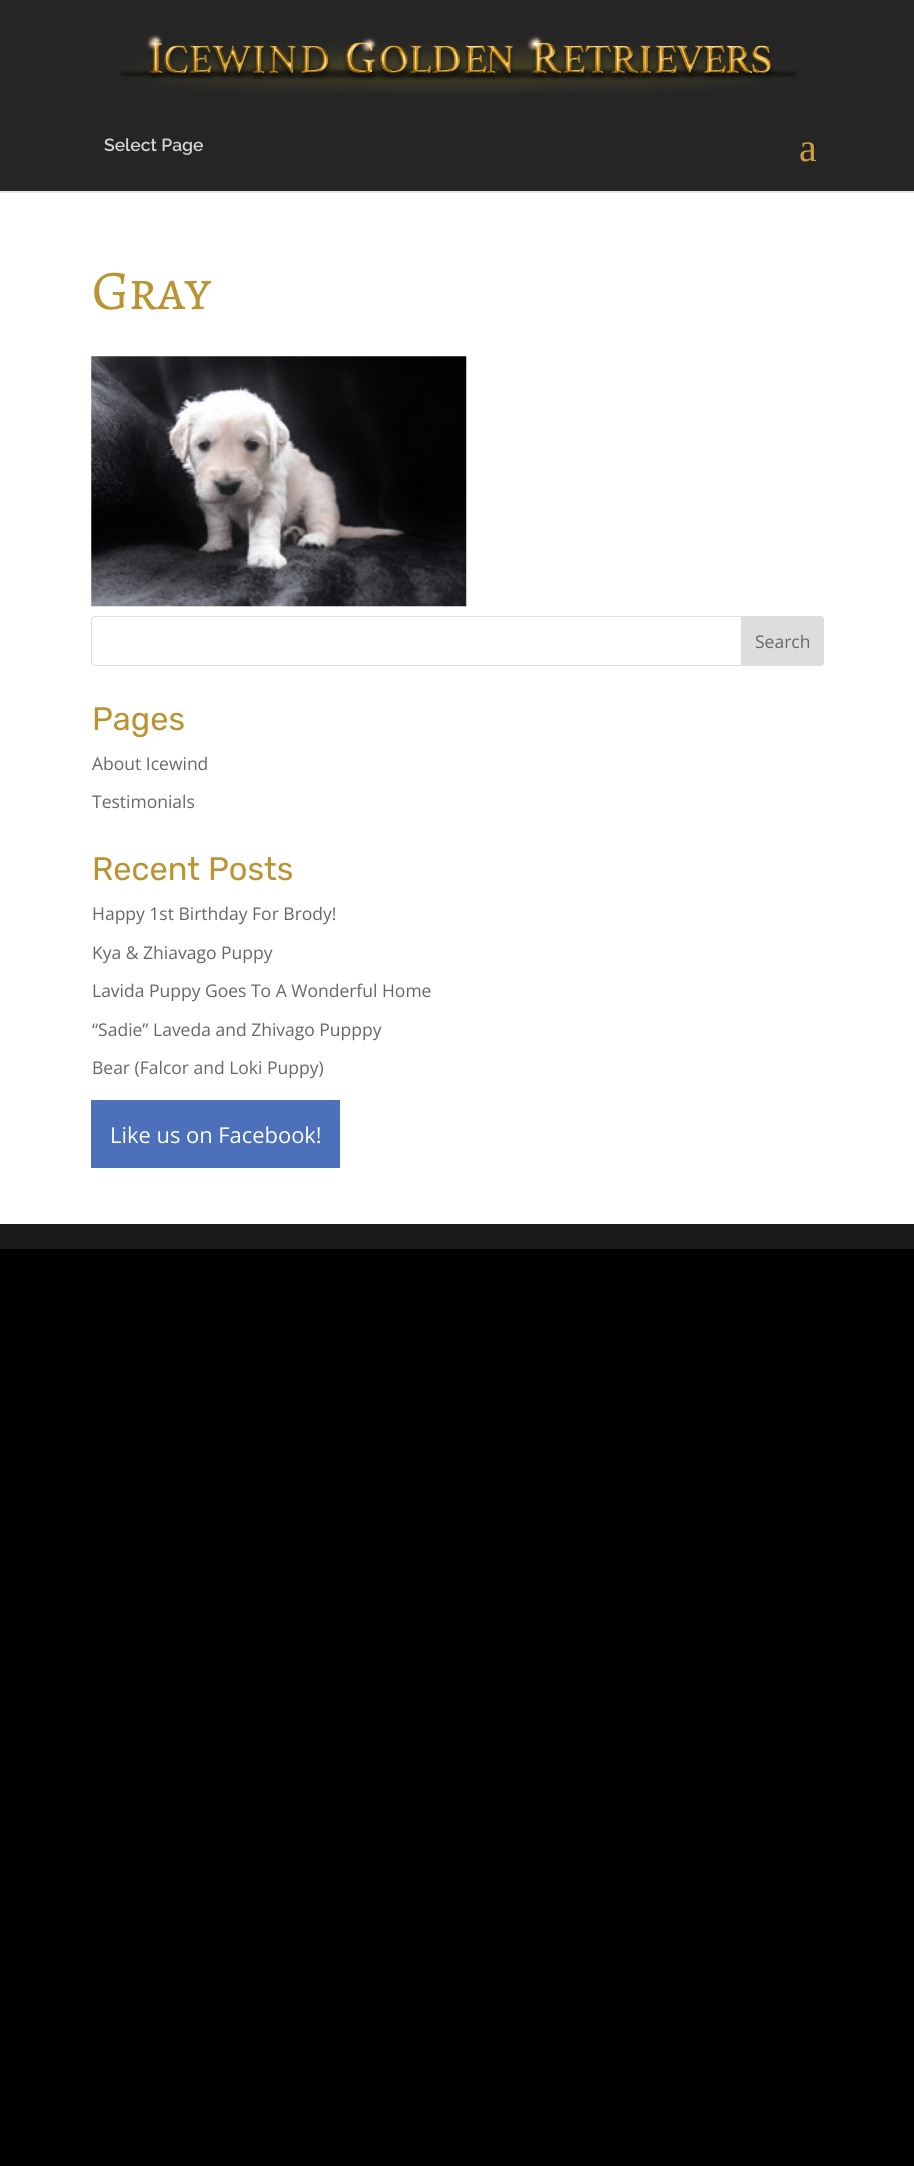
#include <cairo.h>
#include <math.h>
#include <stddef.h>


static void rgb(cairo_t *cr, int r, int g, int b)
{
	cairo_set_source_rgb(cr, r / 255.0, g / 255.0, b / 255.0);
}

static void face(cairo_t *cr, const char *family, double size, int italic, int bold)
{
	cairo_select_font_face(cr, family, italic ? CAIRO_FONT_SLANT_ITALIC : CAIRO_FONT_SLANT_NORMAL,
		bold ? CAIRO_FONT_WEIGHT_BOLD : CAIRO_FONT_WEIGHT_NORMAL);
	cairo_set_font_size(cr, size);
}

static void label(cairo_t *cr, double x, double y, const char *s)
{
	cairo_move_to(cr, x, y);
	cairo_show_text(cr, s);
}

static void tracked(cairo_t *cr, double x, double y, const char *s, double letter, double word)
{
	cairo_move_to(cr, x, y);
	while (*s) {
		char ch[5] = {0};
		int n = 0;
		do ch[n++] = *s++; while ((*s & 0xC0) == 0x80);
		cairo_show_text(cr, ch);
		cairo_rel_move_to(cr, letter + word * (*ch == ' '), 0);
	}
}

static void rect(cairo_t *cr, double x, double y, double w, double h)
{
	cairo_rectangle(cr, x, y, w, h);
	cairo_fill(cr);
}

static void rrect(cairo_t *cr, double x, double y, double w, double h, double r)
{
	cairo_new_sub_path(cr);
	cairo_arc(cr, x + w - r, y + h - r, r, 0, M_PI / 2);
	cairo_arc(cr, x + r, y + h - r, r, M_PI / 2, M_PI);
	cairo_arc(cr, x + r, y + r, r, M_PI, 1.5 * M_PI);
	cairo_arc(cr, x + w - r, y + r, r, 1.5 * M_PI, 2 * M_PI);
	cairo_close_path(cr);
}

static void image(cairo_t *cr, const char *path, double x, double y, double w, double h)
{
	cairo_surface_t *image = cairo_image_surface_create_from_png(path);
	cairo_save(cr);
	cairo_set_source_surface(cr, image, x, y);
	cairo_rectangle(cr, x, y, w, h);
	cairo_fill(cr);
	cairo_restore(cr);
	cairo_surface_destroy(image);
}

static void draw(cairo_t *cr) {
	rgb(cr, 0, 0, 0);
	cairo_paint(cr);
	rgb(cr, 230, 230, 230);
	rect(cr, 0, 191, 914, 2);
	rgb(cr, 37, 37, 37);
	rect(cr, 0, 0, 914, 191);
	image(cr, "image0.png", 119, 34, 679, 59);
	face(cr, "Raleway SemiBold", 17.5, 0, 0);
	rgb(cr, 211, 211, 211);
	label(cr, 104, 151, "Select Page");
	face(cr, "Liberation Serif", 40, 0, 0);
	rgb(cr, 206, 159, 66);
	label(cr, 799, 161, "a");
	rgb(cr, 255, 255, 255);
	rect(cr, 0, 193, 914, 1031);
	face(cr, "Alegreya SC", 56, 0, 0);
	rgb(cr, 186, 147, 50);
	tracked(cr, 92, 309, "Gray", -1, 0);
	image(cr, "image1.png", 91, 356, 376, 251);
	rrect(cr, 91.5, 616.5, 732, 49, 3.5);
	rgb(cr, 221, 221, 221);
	cairo_set_line_width(cr, 1);
	cairo_stroke(cr);
	cairo_new_path(cr);
	cairo_move_to(cr, 741.5, 616.5);
	cairo_line_to(cr, 820, 616.5);
	cairo_curve_to(cr, 822, 616.5, 823.5, 618, 823.5, 620);
	cairo_line_to(cr, 823.5, 662);
	cairo_curve_to(cr, 823.5, 664, 822, 665.5, 820, 665.5);
	cairo_line_to(cr, 741.5, 665.5);
	cairo_close_path(cr);
	cairo_fill_preserve(cr);
	cairo_stroke(cr);
	face(cr, "Open Sans", 17.5, 0, 0);
	rgb(cr, 102, 102, 102);
	label(cr, 755, 648, "Search");
	face(cr, "Rubik", 32.5, 0, 0);
	rgb(cr, 186, 147, 50);
	label(cr, 92, 730, "Pages");
	face(cr, "Open Sans", 17.5, 0, 0);
	rgb(cr, 102, 102, 102);
	label(cr, 92, 770, "About Icewind");
	label(cr, 92, 808, "Testimonials");
	face(cr, "Rubik", 32.5, 0, 0);
	rgb(cr, 186, 147, 50);
	label(cr, 92, 880, "Recent Posts");
	face(cr, "Open Sans", 17.5, 0, 0);
	rgb(cr, 102, 102, 102);
	label(cr, 92, 920, "Happy 1st Birthday For Brody!");
	label(cr, 92, 959, "Kya & Zhiavago Puppy");
	label(cr, 92, 997, "Lavida Puppy Goes To A Wonderful Home");
	label(cr, 92, 1036, "“Sadie” Laveda and Zhivago Pupppy");
	label(cr, 92, 1074, "Bear (Falcor and Loki Puppy)");
	rgb(cr, 76, 112, 186);
	rect(cr, 91, 1100, 249, 68);
	face(cr, "Open Sans", 21.9, 0, 0);
	rgb(cr, 255, 255, 255);
	label(cr, 110, 1143, "Like us on Facebook!");
	rgb(cr, 25, 25, 25);
	rect(cr, 0, 1224, 914, 25);
}

int main(void) {
	cairo_surface_t *surface = cairo_image_surface_create(CAIRO_FORMAT_RGB24, 914, 2166);
	cairo_t *cr = cairo_create(surface);
	cairo_font_options_t *options = cairo_font_options_create();
	cairo_font_options_set_hint_metrics(options, CAIRO_HINT_METRICS_OFF);
	cairo_font_options_set_hint_style(options, CAIRO_HINT_STYLE_NONE);
	cairo_set_font_options(cr, options);
	cairo_set_miter_limit(cr, 4);
	draw(cr);
	cairo_surface_write_to_png(surface, "render.png");
	cairo_font_options_destroy(options);
	cairo_destroy(cr);
	cairo_surface_destroy(surface);
	return 0;
}
